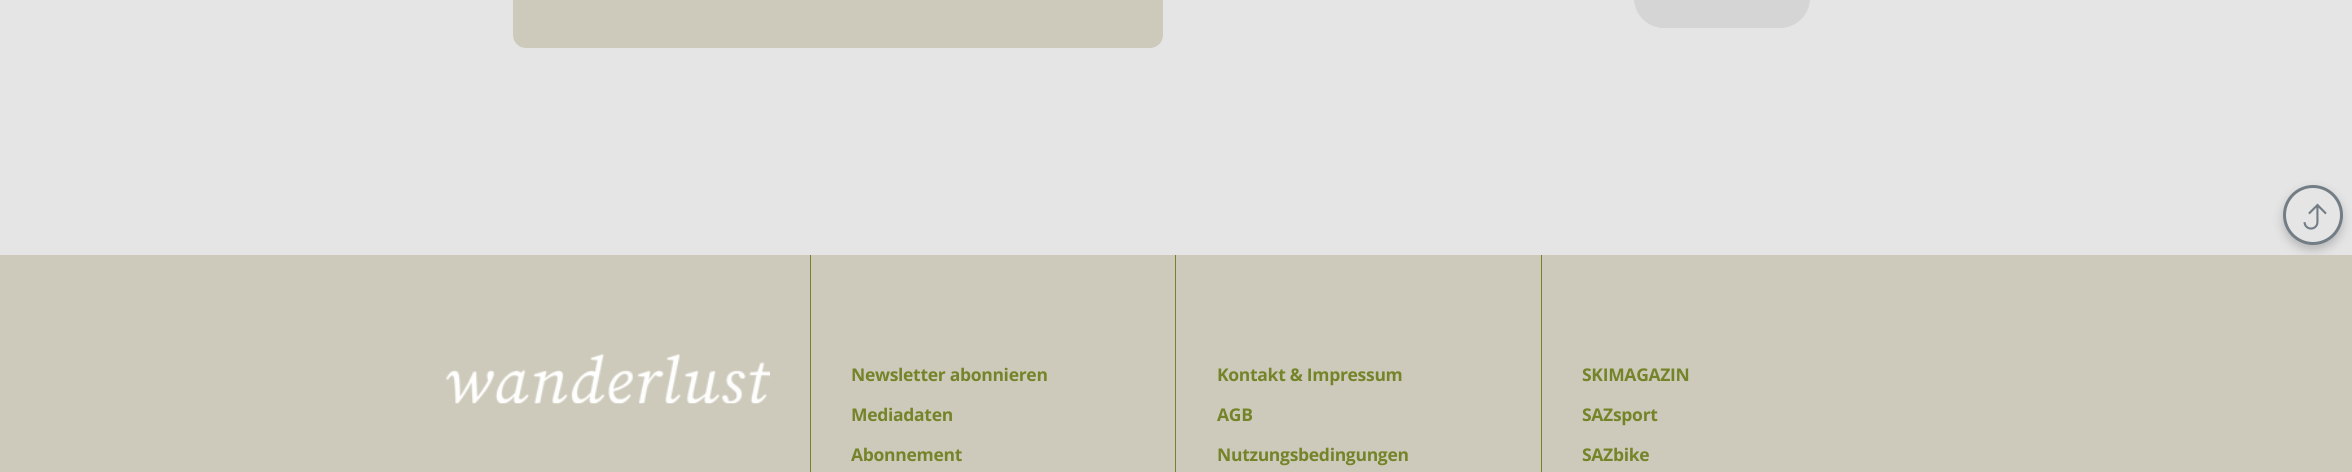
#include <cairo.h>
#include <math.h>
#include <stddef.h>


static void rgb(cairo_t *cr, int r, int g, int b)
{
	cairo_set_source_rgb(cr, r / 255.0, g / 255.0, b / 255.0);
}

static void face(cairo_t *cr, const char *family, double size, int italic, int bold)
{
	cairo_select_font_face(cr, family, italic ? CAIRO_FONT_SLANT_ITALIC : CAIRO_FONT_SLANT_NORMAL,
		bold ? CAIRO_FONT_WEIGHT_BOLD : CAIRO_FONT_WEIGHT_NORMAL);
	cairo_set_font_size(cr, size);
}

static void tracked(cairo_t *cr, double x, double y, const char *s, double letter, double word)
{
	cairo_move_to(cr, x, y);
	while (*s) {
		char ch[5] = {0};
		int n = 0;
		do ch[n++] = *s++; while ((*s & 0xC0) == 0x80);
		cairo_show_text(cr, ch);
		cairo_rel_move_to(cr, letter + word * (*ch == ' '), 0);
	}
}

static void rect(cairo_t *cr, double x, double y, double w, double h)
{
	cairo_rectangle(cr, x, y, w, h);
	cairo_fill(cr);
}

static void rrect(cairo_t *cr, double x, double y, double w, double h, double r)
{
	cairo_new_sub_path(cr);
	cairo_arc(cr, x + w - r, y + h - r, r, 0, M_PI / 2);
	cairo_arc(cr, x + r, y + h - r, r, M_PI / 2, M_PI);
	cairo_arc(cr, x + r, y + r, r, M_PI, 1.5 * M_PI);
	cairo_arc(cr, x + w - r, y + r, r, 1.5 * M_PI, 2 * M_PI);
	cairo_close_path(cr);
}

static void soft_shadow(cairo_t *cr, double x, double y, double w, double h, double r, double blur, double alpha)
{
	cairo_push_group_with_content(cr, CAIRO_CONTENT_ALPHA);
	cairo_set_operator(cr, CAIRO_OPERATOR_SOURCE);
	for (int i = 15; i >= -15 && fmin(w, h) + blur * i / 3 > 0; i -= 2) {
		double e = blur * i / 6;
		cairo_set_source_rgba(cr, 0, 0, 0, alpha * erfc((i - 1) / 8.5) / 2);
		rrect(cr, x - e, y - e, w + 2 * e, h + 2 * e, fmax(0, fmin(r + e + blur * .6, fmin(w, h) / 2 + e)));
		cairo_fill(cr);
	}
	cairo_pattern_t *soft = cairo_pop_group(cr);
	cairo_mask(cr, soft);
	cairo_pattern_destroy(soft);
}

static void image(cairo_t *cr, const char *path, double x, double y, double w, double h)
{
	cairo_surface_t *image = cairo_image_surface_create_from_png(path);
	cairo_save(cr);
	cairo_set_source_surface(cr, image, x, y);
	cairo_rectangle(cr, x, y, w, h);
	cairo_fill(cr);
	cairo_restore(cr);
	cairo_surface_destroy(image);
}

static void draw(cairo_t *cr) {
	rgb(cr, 229, 229, 229);
	cairo_paint(cr);
	rgb(cr, 205, 202, 187);
	rrect(cr, 513, -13, 650, 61, 13);
	cairo_fill(cr);
	rgb(cr, 213, 213, 213);
	rrect(cr, 1634.5, -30.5, 175, 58, 29.5);
	cairo_fill_preserve(cr);
	cairo_set_line_width(cr, 1);
	cairo_stroke(cr);
	rgb(cr, 0, 0, 0);
	soft_shadow(cr, 2283, 190, 60, 60, 30, 5, 0.2);
	rgb(cr, 229, 229, 229);
	cairo_arc(cr, 2313, 215, 28.5, 0, 2 * M_PI);
	cairo_fill_preserve(cr);
	rgb(cr, 115, 125, 133);
	cairo_set_line_width(cr, 3);
	cairo_stroke(cr);
	image(cr, "image0.png", 2303, 203, 24, 27);
	rgb(cr, 205, 202, 187);
	rect(cr, 0, 255, 2352, 217);
	rgb(cr, 117, 132, 40);
	rect(cr, 810, 255, 1, 217);
	image(cr, "image1.png", 446, 354, 324, 50);
	rect(cr, 1175, 255, 1, 217);
	face(cr, "Open Sans", 17.5, 0, 1);
	tracked(cr, 851, 381, "Newsletter abonnieren", -0.3, 0);
	tracked(cr, 851, 421, "Mediadaten", -0.3, 0);
	tracked(cr, 851, 461, "Abonnement", -0.3, 0);
	rect(cr, 1541, 255, 1, 217);
	tracked(cr, 1217, 381, "Kontakt & Impressum", -0.3, 0);
	tracked(cr, 1217, 421, "AGB", -0.3, 0);
	tracked(cr, 1217, 461, "Nutzungsbedingungen", -0.3, 0);
	tracked(cr, 1582, 381, "SKIMAGAZIN", -0.3, 0);
	tracked(cr, 1582, 421, "SAZsport", -0.3, 0);
	tracked(cr, 1582, 461, "SAZbike", -0.3, 0);
}

int main(void) {
	cairo_surface_t *surface = cairo_image_surface_create(CAIRO_FORMAT_RGB24, 2352, 472);
	cairo_t *cr = cairo_create(surface);
	cairo_font_options_t *options = cairo_font_options_create();
	cairo_font_options_set_hint_metrics(options, CAIRO_HINT_METRICS_OFF);
	cairo_font_options_set_hint_style(options, CAIRO_HINT_STYLE_NONE);
	cairo_set_font_options(cr, options);
	cairo_set_miter_limit(cr, 4);
	draw(cr);
	cairo_surface_write_to_png(surface, "render.png");
	cairo_font_options_destroy(options);
	cairo_destroy(cr);
	cairo_surface_destroy(surface);
	return 0;
}
